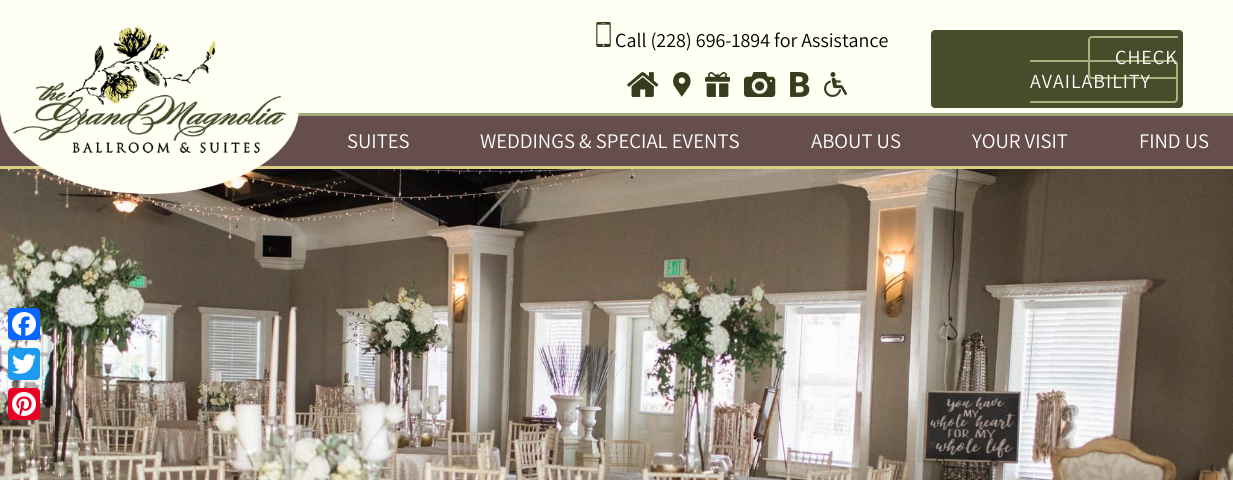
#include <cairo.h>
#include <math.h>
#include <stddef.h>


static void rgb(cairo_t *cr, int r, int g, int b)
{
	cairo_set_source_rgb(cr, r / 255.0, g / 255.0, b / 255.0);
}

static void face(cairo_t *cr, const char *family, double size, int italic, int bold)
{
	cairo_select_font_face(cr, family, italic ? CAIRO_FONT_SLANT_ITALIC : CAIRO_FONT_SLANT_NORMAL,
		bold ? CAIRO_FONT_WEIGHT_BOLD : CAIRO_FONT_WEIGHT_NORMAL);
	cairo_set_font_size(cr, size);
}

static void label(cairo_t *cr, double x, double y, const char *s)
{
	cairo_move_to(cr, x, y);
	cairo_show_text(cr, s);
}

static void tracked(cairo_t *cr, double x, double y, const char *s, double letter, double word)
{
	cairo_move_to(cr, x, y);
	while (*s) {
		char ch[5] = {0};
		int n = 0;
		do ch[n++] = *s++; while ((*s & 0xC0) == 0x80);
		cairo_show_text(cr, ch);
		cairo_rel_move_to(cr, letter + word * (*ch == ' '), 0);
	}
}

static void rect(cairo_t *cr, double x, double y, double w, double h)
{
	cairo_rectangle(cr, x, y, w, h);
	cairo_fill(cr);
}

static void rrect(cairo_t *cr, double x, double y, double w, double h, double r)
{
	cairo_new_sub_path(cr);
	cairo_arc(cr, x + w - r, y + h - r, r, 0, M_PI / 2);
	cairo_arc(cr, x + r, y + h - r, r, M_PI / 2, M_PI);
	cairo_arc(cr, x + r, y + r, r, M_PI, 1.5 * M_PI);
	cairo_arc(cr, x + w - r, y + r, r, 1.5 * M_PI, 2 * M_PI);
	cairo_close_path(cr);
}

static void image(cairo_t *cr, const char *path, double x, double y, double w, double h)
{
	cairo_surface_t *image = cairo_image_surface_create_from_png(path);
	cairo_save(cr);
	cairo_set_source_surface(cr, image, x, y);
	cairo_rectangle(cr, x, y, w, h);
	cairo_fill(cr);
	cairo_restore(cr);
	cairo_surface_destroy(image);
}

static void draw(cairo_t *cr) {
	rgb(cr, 255, 255, 243);
	cairo_paint(cr);
	rgb(cr, 102, 78, 76);
	rect(cr, 0, 116, 1233, 50);
	rgb(cr, 162, 168, 121);
	rect(cr, 0, 113, 1233, 3);
	rgb(cr, 216, 208, 133);
	rect(cr, 0, 166, 1233, 3);
	image(cr, "image8.png", 0, 169, 1233, 311);
	image(cr, "image0.png", 0, 27, 299, 167);
	image(cr, "image1.png", 596, 22, 15, 25);
	face(cr, "Assistant", 20, 0, 0);
	rgb(cr, 0, 0, 0);
	label(cr, 615, 47, "Call (228) 696-1894 for Assistance");
	image(cr, "image2.png", 627, 72, 32, 25);
	image(cr, "image3.png", 673, 72, 18, 25);
	image(cr, "image4.png", 705, 72, 25, 25);
	image(cr, "image5.png", 744, 72, 32, 25);
	image(cr, "image6.png", 790, 72, 20, 25);
	image(cr, "image7.png", 824, 72, 23, 25);
	rgb(cr, 71, 76, 43);
	rrect(cr, 931, 30, 252, 78, 4);
	cairo_fill(cr);
	rgb(cr, 171, 174, 123);
	cairo_set_fill_rule(cr, CAIRO_FILL_RULE_EVEN_ODD);
	cairo_new_path(cr);
	cairo_move_to(cr, 1092, 36);
	cairo_line_to(cr, 1178, 36);
	cairo_line_to(cr, 1178, 79);
	cairo_line_to(cr, 1092, 79);
	cairo_curve_to(cr, 1090, 79, 1088, 77, 1088, 75);
	cairo_line_to(cr, 1088, 40);
	cairo_curve_to(cr, 1088, 38, 1090, 36, 1092, 36);
	cairo_close_path(cr);
	cairo_move_to(cr, 1092, 38);
	cairo_line_to(cr, 1178, 38);
	cairo_line_to(cr, 1178, 77);
	cairo_line_to(cr, 1092, 77);
	cairo_curve_to(cr, 1091, 77, 1090, 76, 1090, 75);
	cairo_line_to(cr, 1090, 40);
	cairo_curve_to(cr, 1090, 39, 1091, 38, 1092, 38);
	cairo_close_path(cr);
	cairo_fill(cr);
	cairo_new_path(cr);
	cairo_move_to(cr, 1030, 60);
	cairo_line_to(cr, 1174, 60);
	cairo_curve_to(cr, 1176, 60, 1178, 62, 1178, 64);
	cairo_line_to(cr, 1178, 99);
	cairo_curve_to(cr, 1178, 101, 1176, 103, 1174, 103);
	cairo_line_to(cr, 1030, 103);
	cairo_close_path(cr);
	cairo_move_to(cr, 1030, 62);
	cairo_line_to(cr, 1174, 62);
	cairo_curve_to(cr, 1175, 62, 1176, 63, 1176, 64);
	cairo_line_to(cr, 1176, 99);
	cairo_curve_to(cr, 1176, 100, 1175, 101, 1174, 101);
	cairo_line_to(cr, 1030, 101);
	cairo_close_path(cr);
	cairo_fill(cr);
	rgb(cr, 255, 255, 255);
	tracked(cr, 1115, 64, "CHECK", 1, 0);
	tracked(cr, 1030, 88, "AVAILABILITY", 1, 0);
	face(cr, "Assistant", 20.75, 0, 0);
	label(cr, 347, 148, "SUITES");
	label(cr, 480, 148, "WEDDINGS & SPECIAL EVENTS");
	label(cr, 811, 148, "ABOUT US");
	label(cr, 972, 148, "YOUR VISIT");
	label(cr, 1139, 148, "FIND US");
	rgb(cr, 8, 102, 255);
	rrect(cr, 8, 308, 32, 32, 4);
	cairo_fill(cr);
	image(cr, "image9.png", 12, 312, 24, 24);
	rgb(cr, 29, 155, 240);
	rrect(cr, 8, 348, 32, 32, 4);
	cairo_fill(cr);
	image(cr, "image10.png", 12, 354, 24, 20);
	rgb(cr, 230, 0, 35);
	rrect(cr, 8, 388, 32, 32, 4);
	cairo_fill(cr);
	image(cr, "image11.png", 12, 392, 24, 24);
}

int main(void) {
	cairo_surface_t *surface = cairo_image_surface_create(CAIRO_FORMAT_RGB24, 1233, 480);
	cairo_t *cr = cairo_create(surface);
	cairo_font_options_t *options = cairo_font_options_create();
	cairo_font_options_set_hint_metrics(options, CAIRO_HINT_METRICS_OFF);
	cairo_font_options_set_hint_style(options, CAIRO_HINT_STYLE_NONE);
	cairo_set_font_options(cr, options);
	cairo_set_miter_limit(cr, 4);
	draw(cr);
	cairo_surface_write_to_png(surface, "render.png");
	cairo_font_options_destroy(options);
	cairo_destroy(cr);
	cairo_surface_destroy(surface);
	return 0;
}
